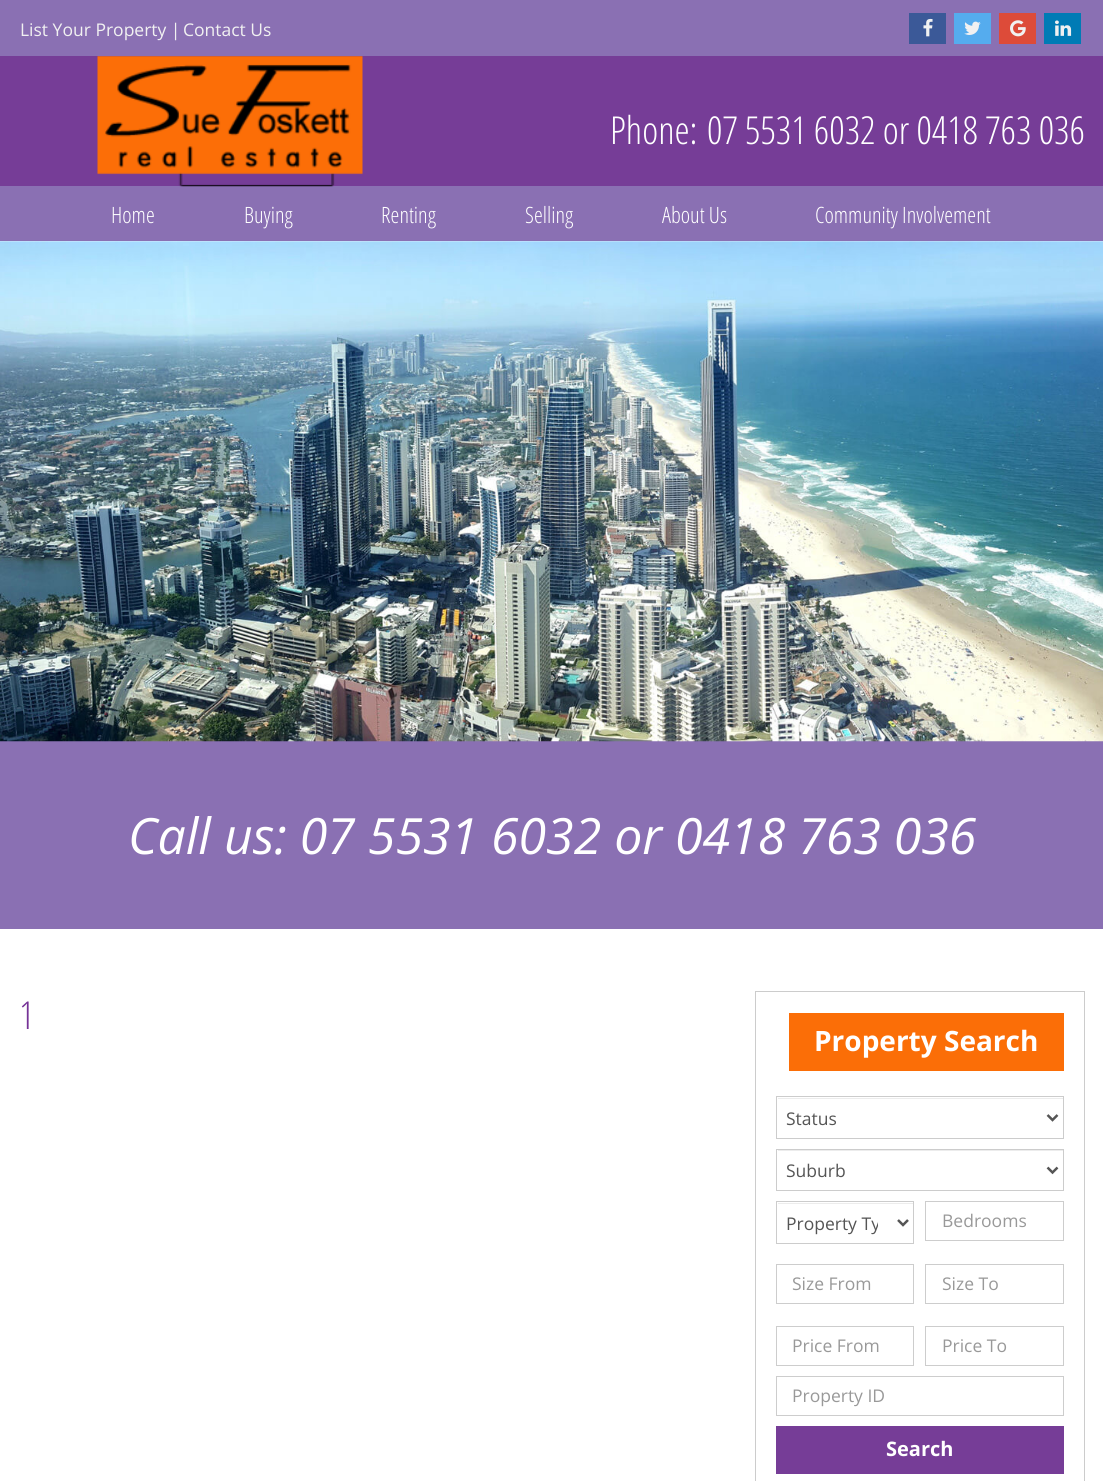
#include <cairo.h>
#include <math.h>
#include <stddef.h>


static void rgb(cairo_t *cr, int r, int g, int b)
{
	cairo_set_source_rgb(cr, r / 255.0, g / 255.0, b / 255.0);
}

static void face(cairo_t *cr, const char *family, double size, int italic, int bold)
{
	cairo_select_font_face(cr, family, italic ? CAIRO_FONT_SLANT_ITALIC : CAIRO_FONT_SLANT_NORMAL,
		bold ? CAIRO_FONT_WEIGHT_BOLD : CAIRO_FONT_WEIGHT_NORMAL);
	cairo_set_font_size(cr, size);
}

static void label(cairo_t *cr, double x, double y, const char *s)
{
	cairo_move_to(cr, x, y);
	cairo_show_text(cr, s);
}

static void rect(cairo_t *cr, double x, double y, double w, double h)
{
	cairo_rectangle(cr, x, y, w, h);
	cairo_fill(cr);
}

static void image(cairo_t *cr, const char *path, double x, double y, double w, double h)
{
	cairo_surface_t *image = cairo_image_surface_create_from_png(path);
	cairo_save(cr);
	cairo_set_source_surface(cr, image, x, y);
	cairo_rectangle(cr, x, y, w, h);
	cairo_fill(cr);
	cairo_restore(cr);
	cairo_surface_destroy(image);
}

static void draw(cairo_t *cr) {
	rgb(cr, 255, 255, 255);
	cairo_paint(cr);
	rgb(cr, 138, 112, 179);
	rect(cr, 0, 0, 1103, 56);
	face(cr, "Open Sans", 17.5, 0, 0);
	rgb(cr, 241, 241, 241);
	label(cr, 20, 36, "List Your Property |");
	label(cr, 183, 36, "Contact Us");
	rgb(cr, 59, 89, 152);
	rect(cr, 909, 13, 37, 31);
	image(cr, "image0.png", 923, 18, 10, 19);
	rgb(cr, 85, 172, 238);
	rect(cr, 954, 13, 37, 31);
	image(cr, "image1.png", 964, 21, 17, 14);
	rgb(cr, 221, 75, 57);
	rect(cr, 999, 13, 37, 31);
	image(cr, "image2.png", 1010, 20, 16, 17);
	rgb(cr, 0, 123, 181);
	rect(cr, 1044, 13, 37, 31);
	image(cr, "image3.png", 1055, 20, 17, 16);
	rgb(cr, 118, 61, 151);
	rect(cr, 0, 56, 1103, 130);
	rgb(cr, 138, 112, 179);
	rect(cr, 0, 186, 1103, 55);
	image(cr, "image4.png", 97, 56, 266, 131);
	face(cr, "Open Sans Light", 38.5, 0, 0);
	rgb(cr, 255, 255, 255);
	label(cr, 610, 144, "Phone:");
	label(cr, 707, 144, "07 5531 6032 or 0418 763 036");
	face(cr, "Open Sans Light", 22.5, 0, 0);
	label(cr, 111, 223, "Home");
	label(cr, 244, 223, "Buying");
	label(cr, 381, 223, "Renting");
	label(cr, 525, 223, "Selling");
	label(cr, 662, 223, "About Us");
	label(cr, 815, 223, "Community Involvement");
	rgb(cr, 138, 112, 179);
	rect(cr, 0, 741, 1103, 188);
	image(cr, "image5.png", 0, 241, 1103, 501);
	face(cr, "Open Sans", 50, 1, 0);
	rgb(cr, 255, 255, 255);
	label(cr, 128, 854, "Call us: 07 5531 6032 or 0418 763 036");
	face(cr, "Open Sans Light", 38.5, 0, 0);
	rgb(cr, 118, 51, 151);
	label(cr, 19, 1029, "1");
	cairo_rectangle(cr, 755.5, 991.5, 329, 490);
	rgb(cr, 204, 204, 204);
	cairo_set_line_width(cr, 1);
	cairo_stroke(cr);
	rgb(cr, 251, 110, 7);
	rect(cr, 789, 1013, 275, 58);
	face(cr, "Open Sans", 28, 0, 1);
	rgb(cr, 255, 255, 255);
	label(cr, 814, 1051, "Property Search");
	rgb(cr, 236, 236, 236);
	rect(cr, 778, 1098, 285, 1);
	cairo_rectangle(cr, 776.5, 1096.5, 287, 42);
	rgb(cr, 204, 204, 204);
	cairo_stroke(cr);
	cairo_new_path(cr);
	cairo_move_to(cr, 1047.5, 1115);
	cairo_line_to(cr, 1052.5, 1120);
	cairo_line_to(cr, 1057.5, 1115);
	rgb(cr, 85, 85, 85);
	cairo_set_line_width(cr, 2.5);
	cairo_stroke(cr);
	face(cr, "Open Sans", 17.5, 0, 0);
	label(cr, 786, 1125, "Status");
	rgb(cr, 236, 236, 236);
	rect(cr, 778, 1150, 285, 1);
	cairo_rectangle(cr, 776.5, 1149.5, 287, 41);
	rgb(cr, 204, 204, 204);
	cairo_set_line_width(cr, 1);
	cairo_stroke(cr);
	cairo_new_path(cr);
	cairo_move_to(cr, 1047.5, 1167.5);
	cairo_line_to(cr, 1052.5, 1172.5);
	cairo_line_to(cr, 1057.5, 1167.5);
	rgb(cr, 85, 85, 85);
	cairo_set_line_width(cr, 2.5);
	cairo_stroke(cr);
	label(cr, 786, 1177, "Suburb");
	rgb(cr, 236, 236, 236);
	rect(cr, 778, 1203, 135, 1);
	cairo_rectangle(cr, 776.5, 1201.5, 137, 42);
	rgb(cr, 204, 204, 204);
	cairo_set_line_width(cr, 1);
	cairo_stroke(cr);
	cairo_new_path(cr);
	cairo_move_to(cr, 898, 1220);
	cairo_line_to(cr, 903, 1225);
	cairo_line_to(cr, 908, 1220);
	rgb(cr, 85, 85, 85);
	cairo_set_line_width(cr, 2.5);
	cairo_stroke(cr);
	cairo_save(cr);
	cairo_rectangle(cr, 783, 1210, 95, 26);
	cairo_clip(cr);
	label(cr, 786, 1230, "Property Ty");
	cairo_restore(cr);
	cairo_rectangle(cr, 925.5, 1201.5, 138, 39);
	rgb(cr, 205, 205, 205);
	cairo_set_line_width(cr, 1);
	cairo_stroke(cr);
	rgb(cr, 153, 153, 153);
	label(cr, 942, 1227, "Bedrooms");
	cairo_rectangle(cr, 776.5, 1264.5, 137, 39);
	rgb(cr, 205, 205, 205);
	cairo_stroke(cr);
	rgb(cr, 153, 153, 153);
	label(cr, 792, 1290, "Size From");
	cairo_rectangle(cr, 925.5, 1264.5, 138, 39);
	rgb(cr, 205, 205, 205);
	cairo_stroke(cr);
	rgb(cr, 153, 153, 153);
	label(cr, 942, 1290, "Size To");
	cairo_rectangle(cr, 776.5, 1326.5, 137, 39);
	rgb(cr, 205, 205, 205);
	cairo_stroke(cr);
	rgb(cr, 153, 153, 153);
	label(cr, 792, 1352, "Price From");
	cairo_rectangle(cr, 925.5, 1326.5, 138, 39);
	rgb(cr, 205, 205, 205);
	cairo_stroke(cr);
	rgb(cr, 153, 153, 153);
	label(cr, 942, 1352, "Price To");
	cairo_rectangle(cr, 776.5, 1376.5, 287, 39);
	rgb(cr, 205, 205, 205);
	cairo_stroke(cr);
	rgb(cr, 153, 153, 153);
	label(cr, 792, 1402, "Property ID");
	rgb(cr, 118, 61, 151);
	rect(cr, 776, 1426, 288, 48);
	face(cr, "Open Sans", 20, 0, 1);
	rgb(cr, 255, 255, 255);
	label(cr, 886, 1456, "Search");
}

int main(void) {
	cairo_surface_t *surface = cairo_image_surface_create(CAIRO_FORMAT_RGB24, 1103, 1481);
	cairo_t *cr = cairo_create(surface);
	cairo_font_options_t *options = cairo_font_options_create();
	cairo_font_options_set_hint_metrics(options, CAIRO_HINT_METRICS_OFF);
	cairo_font_options_set_hint_style(options, CAIRO_HINT_STYLE_NONE);
	cairo_set_font_options(cr, options);
	cairo_set_miter_limit(cr, 4);
	draw(cr);
	cairo_surface_write_to_png(surface, "render.png");
	cairo_font_options_destroy(options);
	cairo_destroy(cr);
	cairo_surface_destroy(surface);
	return 0;
}
